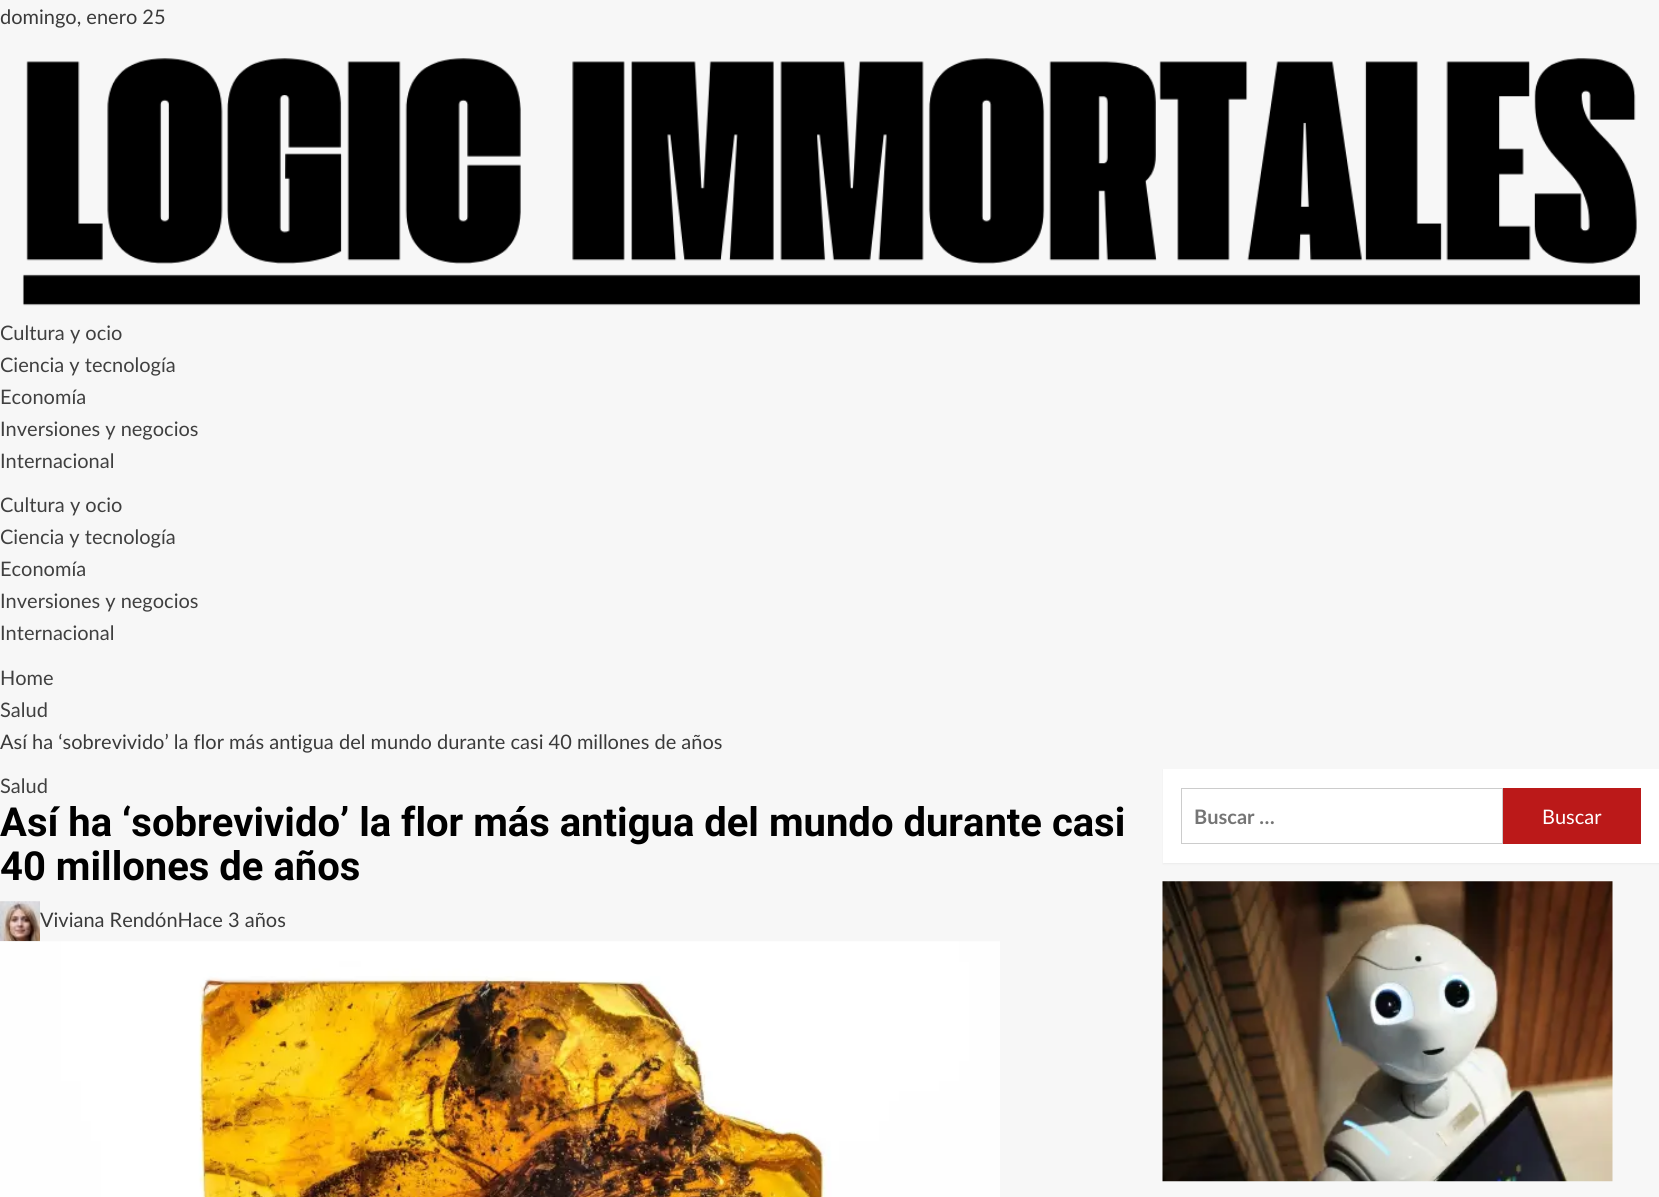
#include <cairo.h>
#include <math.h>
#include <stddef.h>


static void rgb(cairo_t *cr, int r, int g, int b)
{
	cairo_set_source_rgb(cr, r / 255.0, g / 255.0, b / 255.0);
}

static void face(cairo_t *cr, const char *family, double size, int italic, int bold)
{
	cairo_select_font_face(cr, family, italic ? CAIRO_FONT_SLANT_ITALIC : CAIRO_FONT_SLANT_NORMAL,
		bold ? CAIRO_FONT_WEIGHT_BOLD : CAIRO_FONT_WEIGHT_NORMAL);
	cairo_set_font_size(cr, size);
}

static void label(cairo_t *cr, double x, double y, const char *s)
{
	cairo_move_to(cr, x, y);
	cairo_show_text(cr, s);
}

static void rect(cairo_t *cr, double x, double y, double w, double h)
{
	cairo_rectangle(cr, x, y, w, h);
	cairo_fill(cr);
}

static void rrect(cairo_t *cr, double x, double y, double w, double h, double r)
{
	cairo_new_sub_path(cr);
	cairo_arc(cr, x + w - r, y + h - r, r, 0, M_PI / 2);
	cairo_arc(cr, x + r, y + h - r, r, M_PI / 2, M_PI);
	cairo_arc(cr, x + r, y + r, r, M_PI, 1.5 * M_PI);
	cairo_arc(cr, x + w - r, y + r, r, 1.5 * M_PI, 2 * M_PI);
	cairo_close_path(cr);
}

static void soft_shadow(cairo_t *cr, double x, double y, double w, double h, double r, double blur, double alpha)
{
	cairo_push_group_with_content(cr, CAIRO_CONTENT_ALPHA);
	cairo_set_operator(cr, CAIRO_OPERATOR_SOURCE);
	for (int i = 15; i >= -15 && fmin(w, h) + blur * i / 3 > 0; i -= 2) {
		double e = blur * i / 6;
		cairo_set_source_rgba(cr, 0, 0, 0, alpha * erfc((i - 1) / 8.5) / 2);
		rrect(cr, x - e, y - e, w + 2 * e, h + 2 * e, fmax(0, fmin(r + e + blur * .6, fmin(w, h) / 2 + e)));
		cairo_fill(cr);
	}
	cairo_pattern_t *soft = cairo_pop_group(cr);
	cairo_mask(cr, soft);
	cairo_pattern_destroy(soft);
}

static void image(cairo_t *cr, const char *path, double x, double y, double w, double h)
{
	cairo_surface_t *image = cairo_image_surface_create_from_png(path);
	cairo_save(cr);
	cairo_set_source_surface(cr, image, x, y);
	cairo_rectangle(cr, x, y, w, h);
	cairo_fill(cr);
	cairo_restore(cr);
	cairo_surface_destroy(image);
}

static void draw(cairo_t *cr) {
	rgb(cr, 247, 247, 247);
	cairo_paint(cr);
	face(cr, "Lato", 20, 0, 0);
	rgb(cr, 58, 58, 58);
	label(cr, 0, 24, "domingo, enero 25");
	image(cr, "image0.png", 22, 58, 1618, 248);
	rgb(cr, 64, 64, 64);
	label(cr, 0, 340, "Cultura y ocio");
	label(cr, 0, 372, "Ciencia y tecnología");
	label(cr, 0, 404, "Economía");
	label(cr, 0, 436, "Inversiones y negocios");
	label(cr, 0, 468, "Internacional");
	label(cr, 0, 512, "Cultura y ocio");
	label(cr, 0, 544, "Ciencia y tecnología");
	label(cr, 0, 576, "Economía");
	label(cr, 0, 608, "Inversiones y negocios");
	label(cr, 0, 640, "Internacional");
	label(cr, 0, 685, "Home");
	label(cr, 0, 717, "Salud");
	rgb(cr, 58, 58, 58);
	label(cr, 0, 749, "Así ha ‘sobrevivido’ la flor más antigua del mundo durante casi 40 millones de años");
	rgb(cr, 64, 64, 64);
	label(cr, 0, 793, "Salud");
	face(cr, "Roboto", 40, 0, 1);
	rgb(cr, 0, 0, 0);
	label(cr, 0, 836, "Así ha ‘sobrevivido’ la flor más antigua del mundo durante casi");
	label(cr, 0, 880, "40 millones de años");
	image(cr, "image1.png", 0, 901, 40, 41);
	face(cr, "Lato", 20, 0, 0);
	rgb(cr, 58, 58, 58);
	label(cr, 40, 927, "Viviana RendónHace 3 años");
	image(cr, "image2.png", 0, 941, 1000, 256);
	rgb(cr, 0, 0, 0);
	soft_shadow(cr, 1163, 770, 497, 94, 0, 1, 0.05);
	rgb(cr, 255, 255, 255);
	rect(cr, 1163, 769, 496, 94);
	cairo_rectangle(cr, 1181.5, 788.5, 321, 55);
	rgb(cr, 204, 204, 204);
	cairo_set_line_width(cr, 1);
	cairo_stroke(cr);
	face(cr, "Lato", 20, 0, 1);
	rgb(cr, 117, 117, 117);
	label(cr, 1194, 824, "Buscar …");
	rgb(cr, 187, 25, 25);
	rect(cr, 1503, 788, 138, 56);
	face(cr, "Lato", 20, 0, 0);
	rgb(cr, 255, 255, 255);
	label(cr, 1542, 824, "Buscar");
	image(cr, "image3.png", 1162, 881, 451, 301);
}

int main(void) {
	cairo_surface_t *surface = cairo_image_surface_create(CAIRO_FORMAT_RGB24, 1659, 1197);
	cairo_t *cr = cairo_create(surface);
	cairo_font_options_t *options = cairo_font_options_create();
	cairo_font_options_set_hint_metrics(options, CAIRO_HINT_METRICS_OFF);
	cairo_font_options_set_hint_style(options, CAIRO_HINT_STYLE_NONE);
	cairo_set_font_options(cr, options);
	cairo_set_miter_limit(cr, 4);
	draw(cr);
	cairo_surface_write_to_png(surface, "render.png");
	cairo_font_options_destroy(options);
	cairo_destroy(cr);
	cairo_surface_destroy(surface);
	return 0;
}
